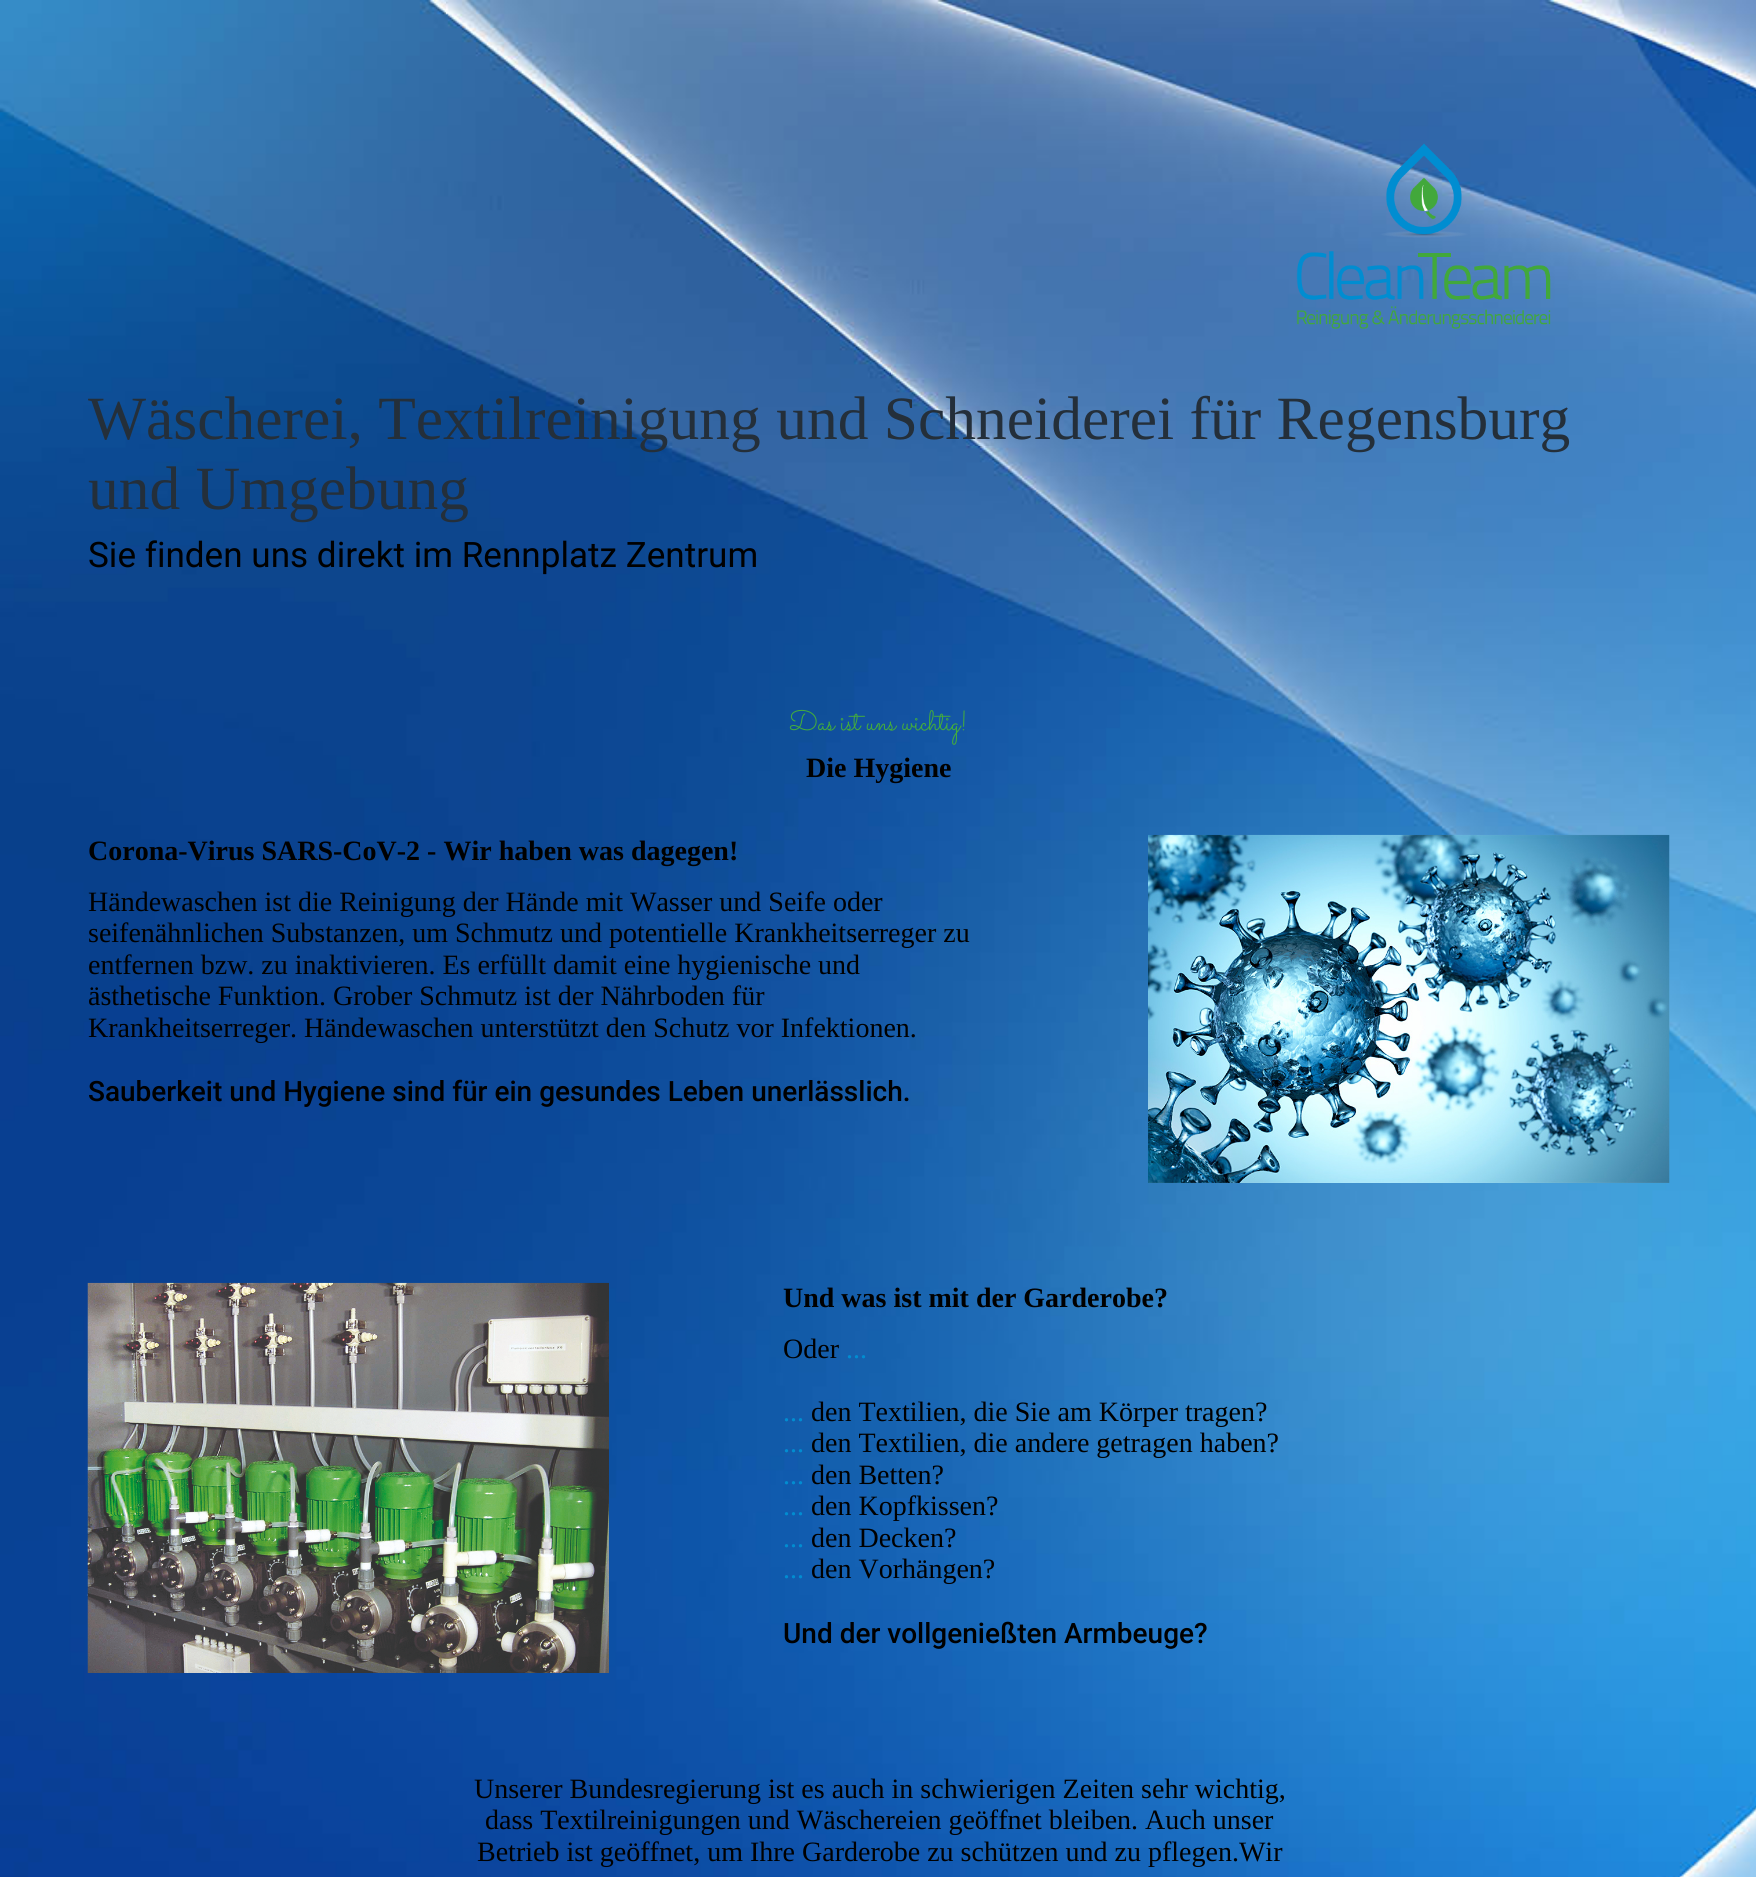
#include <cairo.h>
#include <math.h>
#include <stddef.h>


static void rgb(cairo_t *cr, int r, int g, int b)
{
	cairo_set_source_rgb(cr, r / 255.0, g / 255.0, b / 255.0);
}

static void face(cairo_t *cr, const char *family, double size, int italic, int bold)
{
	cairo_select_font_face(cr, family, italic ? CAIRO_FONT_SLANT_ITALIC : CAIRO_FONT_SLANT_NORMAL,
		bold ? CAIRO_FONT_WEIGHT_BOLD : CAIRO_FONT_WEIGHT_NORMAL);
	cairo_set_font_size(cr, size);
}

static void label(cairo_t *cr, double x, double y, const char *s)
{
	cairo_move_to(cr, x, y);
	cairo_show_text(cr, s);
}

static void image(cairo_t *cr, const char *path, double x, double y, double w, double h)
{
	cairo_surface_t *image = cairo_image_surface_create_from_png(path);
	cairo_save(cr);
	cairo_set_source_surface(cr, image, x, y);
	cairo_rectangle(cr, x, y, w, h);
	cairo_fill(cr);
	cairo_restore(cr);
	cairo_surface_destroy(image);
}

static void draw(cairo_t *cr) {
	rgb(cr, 255, 255, 255);
	cairo_paint(cr);
	image(cr, "image0.png", 0, 0, 1756, 1877);
	image(cr, "image1.png", 1296, 143, 255, 186);
	face(cr, "Liberation Serif", 61.5, 0, 0);
	rgb(cr, 36, 47, 58);
	label(cr, 88, 439, "Wäscherei, Textilreinigung und Schneiderei für Regensburg");
	label(cr, 88, 509, "und Umgebung");
	face(cr, "Roboto", 35.1, 0, 0);
	rgb(cr, 0, 0, 0);
	label(cr, 88, 567, "Sie finden uns direkt im Rennplatz Zentrum");
	face(cr, "Sacramento", 28, 0, 0);
	rgb(cr, 67, 172, 60);
	label(cr, 789, 730, "Das ist uns wichtig!");
	face(cr, "Liberation Serif", 28, 0, 1);
	rgb(cr, 0, 0, 0);
	label(cr, 806, 777, "Die Hygiene");
	label(cr, 88, 860, "Corona-Virus SARS-CoV-2 - Wir haben was dagegen!");
	face(cr, "Liberation Serif", 28, 0, 0);
	label(cr, 88, 911, "Händewaschen ist die Reinigung der Hände mit Wasser und Seife oder");
	label(cr, 88, 942, "seifenähnlichen Substanzen, um Schmutz und potentielle Krankheitserreger zu");
	label(cr, 88, 974, "entfernen bzw. zu inaktivieren. Es erfüllt damit eine hygienische und");
	label(cr, 88, 1005, "ästhetische Funktion. Grober Schmutz ist der Nährboden für");
	label(cr, 88, 1037, "Krankheitserreger. Händewaschen unterstützt den Schutz vor Infektionen.");
	face(cr, "Roboto Medium", 28, 0, 0);
	label(cr, 88, 1101, "Sauberkeit und Hygiene sind für ein gesundes Leben unerlässlich.");
	image(cr, "image2.png", 1148, 834, 522, 349);
	image(cr, "image3.png", 87, 1282, 522, 391);
	face(cr, "Liberation Serif", 28, 0, 1);
	label(cr, 783, 1307, "Und was ist mit der Garderobe?");
	face(cr, "Liberation Serif", 28, 0, 0);
	label(cr, 783, 1358, "Oder");
	rgb(cr, 1, 141, 209);
	label(cr, 846, 1358, "...");
	label(cr, 783, 1421, "...");
	rgb(cr, 0, 0, 0);
	label(cr, 811, 1421, "den Textilien, die Sie am Körper tragen?");
	rgb(cr, 1, 141, 209);
	label(cr, 783, 1452, "...");
	rgb(cr, 0, 0, 0);
	label(cr, 811, 1452, "den Textilien, die andere getragen haben?");
	rgb(cr, 1, 141, 209);
	label(cr, 783, 1484, "...");
	rgb(cr, 0, 0, 0);
	label(cr, 811, 1484, "den Betten?");
	rgb(cr, 1, 141, 209);
	label(cr, 783, 1515, "...");
	rgb(cr, 0, 0, 0);
	label(cr, 811, 1515, "den Kopfkissen?");
	rgb(cr, 1, 141, 209);
	label(cr, 783, 1547, "...");
	rgb(cr, 0, 0, 0);
	label(cr, 811, 1547, "den Decken?");
	rgb(cr, 1, 141, 209);
	label(cr, 783, 1578, "...");
	rgb(cr, 0, 0, 0);
	label(cr, 811, 1578, "den Vorhängen?");
	face(cr, "Roboto Medium", 28, 0, 0);
	label(cr, 783, 1643, "Und der vollgenießten Armbeuge?");
	face(cr, "Liberation Serif", 28, 0, 0);
	label(cr, 474, 1798, "Unserer Bundesregierung ist es auch in schwierigen Zeiten sehr wichtig,");
	label(cr, 485, 1829, "dass Textilreinigungen und Wäschereien geöffnet bleiben. Auch unser");
	label(cr, 477, 1861, "Betrieb ist geöffnet, um Ihre Garderobe zu schützen und zu pflegen.Wir");
}

int main(void) {
	cairo_surface_t *surface = cairo_image_surface_create(CAIRO_FORMAT_RGB24, 1756, 1877);
	cairo_t *cr = cairo_create(surface);
	cairo_font_options_t *options = cairo_font_options_create();
	cairo_font_options_set_hint_metrics(options, CAIRO_HINT_METRICS_OFF);
	cairo_font_options_set_hint_style(options, CAIRO_HINT_STYLE_NONE);
	cairo_set_font_options(cr, options);
	cairo_set_miter_limit(cr, 4);
	draw(cr);
	cairo_surface_write_to_png(surface, "render.png");
	cairo_font_options_destroy(options);
	cairo_destroy(cr);
	cairo_surface_destroy(surface);
	return 0;
}
